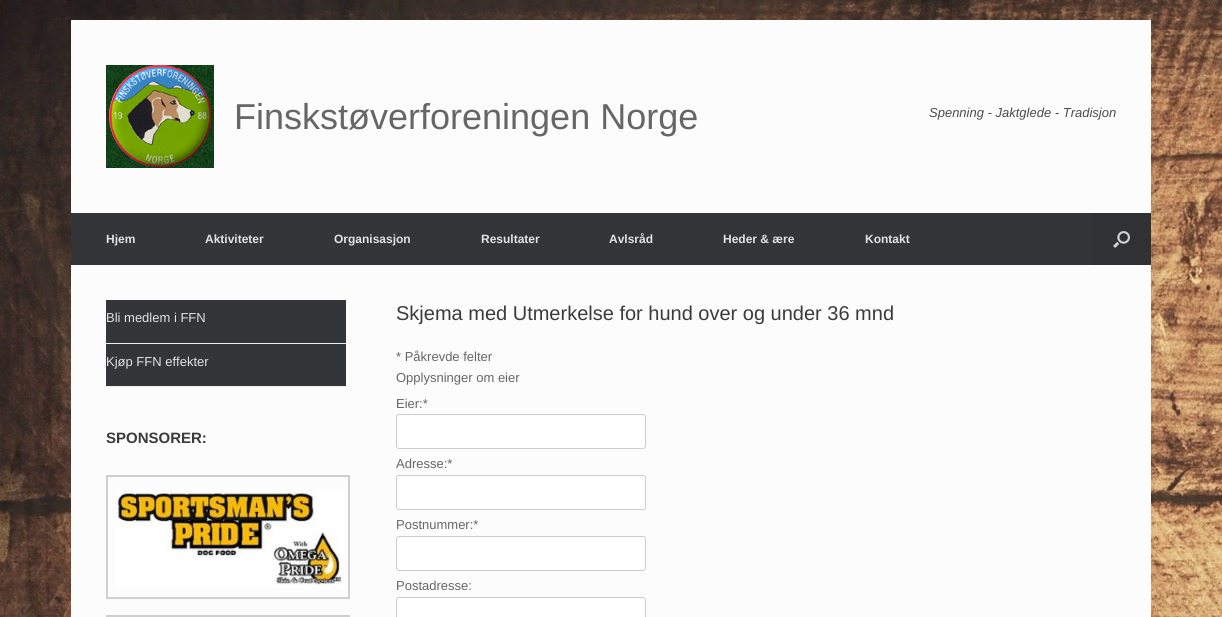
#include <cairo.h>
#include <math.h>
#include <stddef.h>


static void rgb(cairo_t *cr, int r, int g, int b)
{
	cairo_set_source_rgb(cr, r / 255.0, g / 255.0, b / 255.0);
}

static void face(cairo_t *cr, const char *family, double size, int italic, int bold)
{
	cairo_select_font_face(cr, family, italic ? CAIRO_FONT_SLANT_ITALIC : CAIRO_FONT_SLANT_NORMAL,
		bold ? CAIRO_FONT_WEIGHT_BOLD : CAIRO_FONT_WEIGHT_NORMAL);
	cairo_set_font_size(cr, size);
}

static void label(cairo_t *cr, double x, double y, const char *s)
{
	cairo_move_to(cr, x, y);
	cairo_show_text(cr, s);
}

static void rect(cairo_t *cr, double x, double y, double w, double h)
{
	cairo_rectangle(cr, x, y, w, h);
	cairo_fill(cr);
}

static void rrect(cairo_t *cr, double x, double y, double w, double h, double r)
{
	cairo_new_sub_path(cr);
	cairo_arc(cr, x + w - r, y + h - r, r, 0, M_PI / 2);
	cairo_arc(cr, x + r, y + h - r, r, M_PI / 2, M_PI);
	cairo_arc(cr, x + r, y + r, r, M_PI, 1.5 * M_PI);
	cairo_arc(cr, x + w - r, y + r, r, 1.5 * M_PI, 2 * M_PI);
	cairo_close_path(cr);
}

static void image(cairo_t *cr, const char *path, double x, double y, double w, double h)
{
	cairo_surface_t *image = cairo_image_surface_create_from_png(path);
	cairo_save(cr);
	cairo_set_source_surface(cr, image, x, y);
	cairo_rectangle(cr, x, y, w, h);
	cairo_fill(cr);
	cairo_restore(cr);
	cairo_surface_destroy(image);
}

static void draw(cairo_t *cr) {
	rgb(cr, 255, 255, 255);
	cairo_paint(cr);
	image(cr, "image0.png", 0, 0, 1222, 617);
	rgb(cr, 252, 252, 252);
	rect(cr, 71, 20, 1080, 193);
	image(cr, "image1.png", 106, 65, 108, 103);
	face(cr, "Liberation Sans", 36, 0, 0);
	rgb(cr, 102, 102, 102);
	label(cr, 234, 129, "Finskstøverforeningen Norge");
	face(cr, "Liberation Sans", 13, 1, 0);
	rgb(cr, 75, 75, 75);
	label(cr, 929, 117, "Spenning - Jaktglede - Tradisjon");
	rgb(cr, 52, 53, 56);
	rect(cr, 71, 213, 1021, 52);
	face(cr, "Liberation Sans", 12, 0, 1);
	rgb(cr, 226, 226, 226);
	label(cr, 106, 243, "Hjem");
	label(cr, 205, 243, "Aktiviteter");
	label(cr, 334, 243, "Organisasjon");
	label(cr, 481, 243, "Resultater");
	label(cr, 609, 243, "Avlsråd");
	label(cr, 723, 243, "Heder & ære");
	label(cr, 865, 243, "Kontakt");
	rgb(cr, 48, 49, 52);
	rect(cr, 1092, 213, 59, 52);
	image(cr, "image2.png", 1113, 231, 17, 17);
	rgb(cr, 252, 252, 252);
	rect(cr, 71, 265, 1080, 352);
	rgb(cr, 52, 53, 56);
	rect(cr, 106, 300, 240, 86);
	rgb(cr, 238, 238, 238);
	rect(cr, 106, 343, 240, 1);
	face(cr, "Liberation Sans", 13, 0, 0);
	rgb(cr, 226, 226, 226);
	label(cr, 106, 322, "Bli medlem i FFN");
	rgb(cr, 238, 238, 238);
	rect(cr, 106, 386, 240, 1);
	rgb(cr, 226, 226, 226);
	label(cr, 106, 366, "Kjøp FFN effekter");
	face(cr, "Liberation Sans", 15, 0, 1);
	rgb(cr, 59, 59, 59);
	label(cr, 106, 443, "SPONSORER:");
	cairo_rectangle(cr, 107, 476, 242, 122);
	rgb(cr, 207, 207, 207);
	cairo_stroke(cr);
	image(cr, "image3.png", 115, 489, 230, 99);
	cairo_rectangle(cr, 107, 616, 242, 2);
	cairo_stroke(cr);
	face(cr, "Liberation Sans", 20, 0, 0);
	rgb(cr, 59, 59, 59);
	label(cr, 396, 320, "Skjema med Utmerkelse for hund over og under 36 mnd");
	face(cr, "Liberation Sans", 13, 0, 0);
	rgb(cr, 102, 102, 102);
	label(cr, 396, 361, "* Påkrevde felter");
	label(cr, 396, 382, "Opplysninger om eier");
	label(cr, 396, 408, "Eier:*");
	rgb(cr, 255, 255, 255);
	rrect(cr, 396.5, 414.5, 249, 34, 2.5);
	cairo_fill_preserve(cr);
	rgb(cr, 204, 204, 204);
	cairo_set_line_width(cr, 1);
	cairo_stroke(cr);
	rgb(cr, 102, 102, 102);
	label(cr, 396, 468, "Adresse:*");
	rgb(cr, 255, 255, 255);
	rrect(cr, 396.5, 475.5, 249, 34, 2.5);
	cairo_fill_preserve(cr);
	rgb(cr, 204, 204, 204);
	cairo_stroke(cr);
	rgb(cr, 102, 102, 102);
	label(cr, 396, 529, "Postnummer:*");
	rgb(cr, 255, 255, 255);
	rrect(cr, 396.5, 536.5, 249, 34, 2.5);
	cairo_fill_preserve(cr);
	rgb(cr, 204, 204, 204);
	cairo_stroke(cr);
	rgb(cr, 102, 102, 102);
	label(cr, 396, 590, "Postadresse:");
	rgb(cr, 255, 255, 255);
	rrect(cr, 396.5, 597.5, 249, 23, 2.5);
	cairo_fill_preserve(cr);
	rgb(cr, 204, 204, 204);
	cairo_stroke(cr);
}

int main(void) {
	cairo_surface_t *surface = cairo_image_surface_create(CAIRO_FORMAT_RGB24, 1222, 617);
	cairo_t *cr = cairo_create(surface);
	cairo_font_options_t *options = cairo_font_options_create();
	cairo_font_options_set_hint_metrics(options, CAIRO_HINT_METRICS_OFF);
	cairo_font_options_set_hint_style(options, CAIRO_HINT_STYLE_NONE);
	cairo_set_font_options(cr, options);
	cairo_set_miter_limit(cr, 4);
	draw(cr);
	cairo_surface_write_to_png(surface, "render.png");
	cairo_font_options_destroy(options);
	cairo_destroy(cr);
	cairo_surface_destroy(surface);
	return 0;
}
